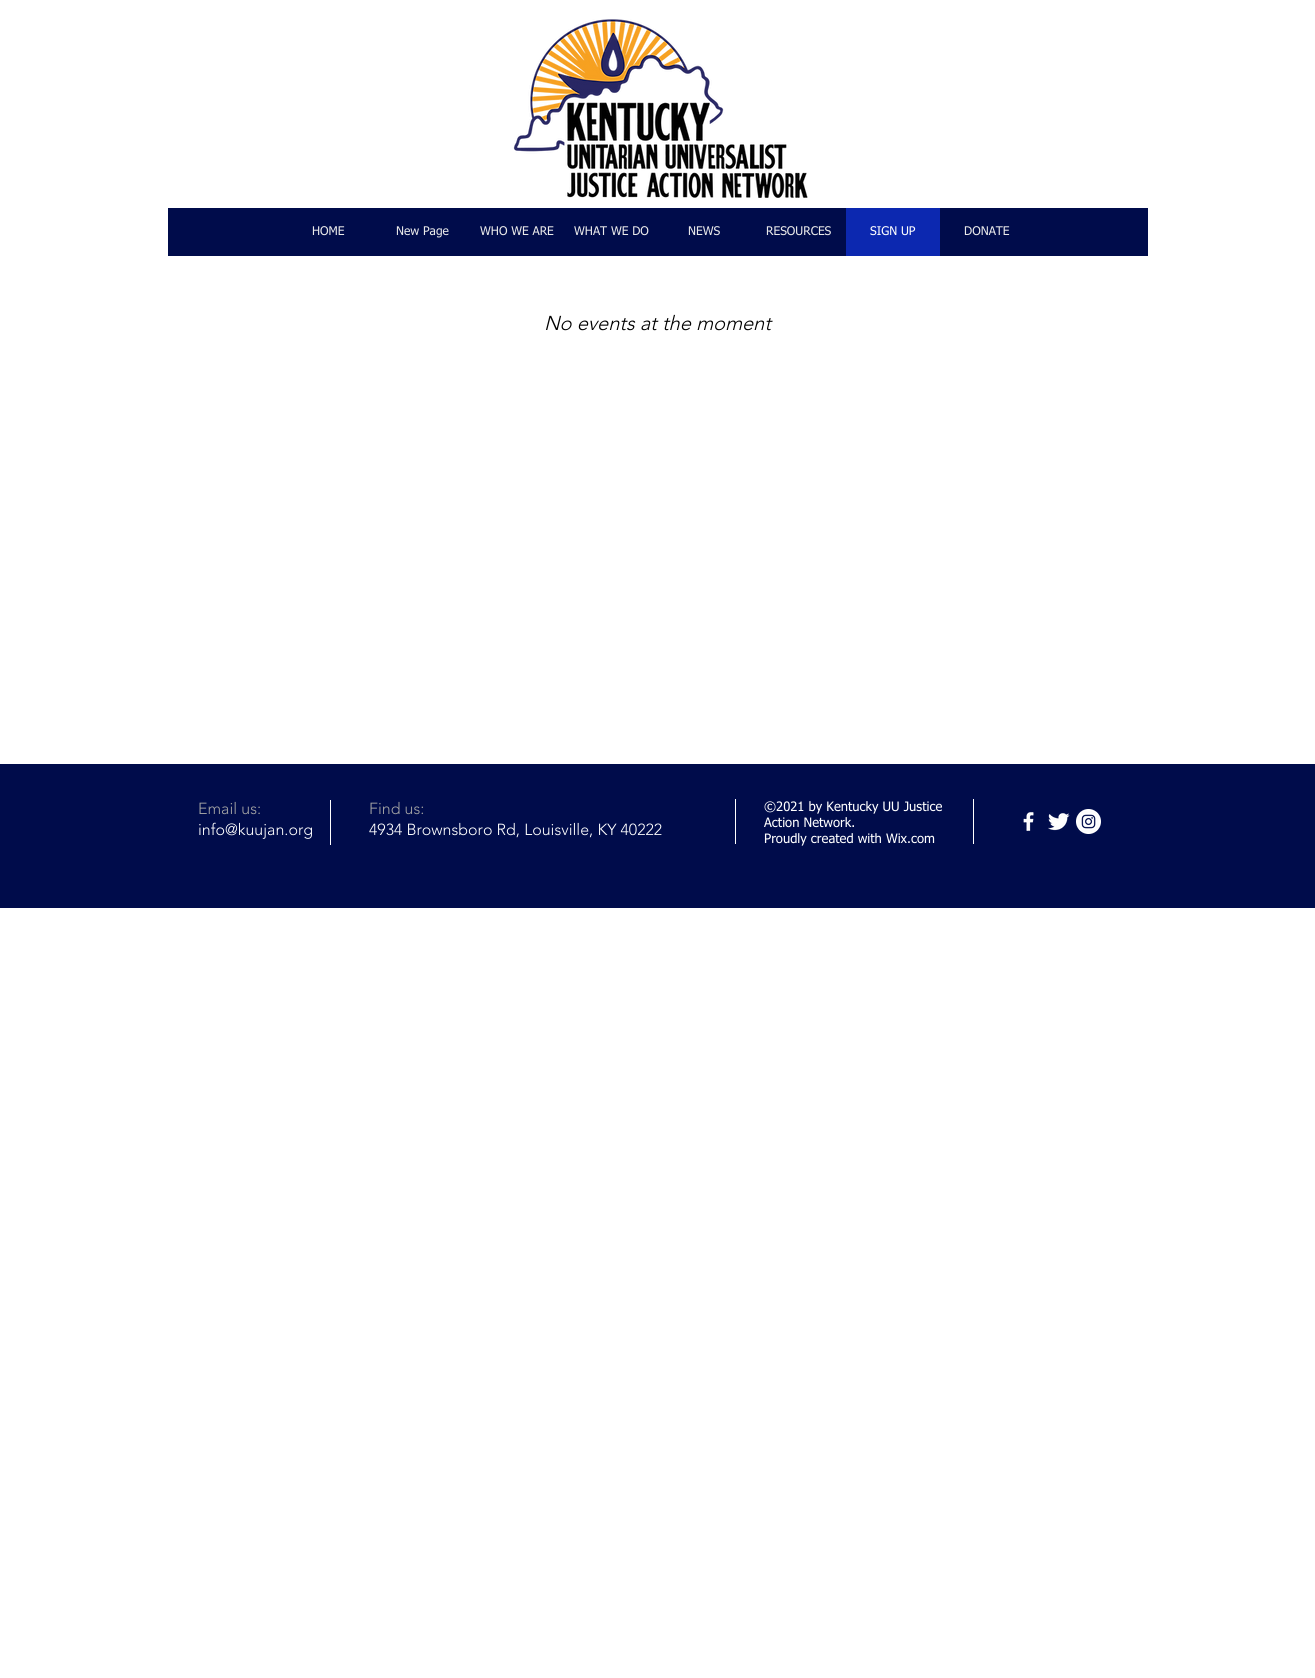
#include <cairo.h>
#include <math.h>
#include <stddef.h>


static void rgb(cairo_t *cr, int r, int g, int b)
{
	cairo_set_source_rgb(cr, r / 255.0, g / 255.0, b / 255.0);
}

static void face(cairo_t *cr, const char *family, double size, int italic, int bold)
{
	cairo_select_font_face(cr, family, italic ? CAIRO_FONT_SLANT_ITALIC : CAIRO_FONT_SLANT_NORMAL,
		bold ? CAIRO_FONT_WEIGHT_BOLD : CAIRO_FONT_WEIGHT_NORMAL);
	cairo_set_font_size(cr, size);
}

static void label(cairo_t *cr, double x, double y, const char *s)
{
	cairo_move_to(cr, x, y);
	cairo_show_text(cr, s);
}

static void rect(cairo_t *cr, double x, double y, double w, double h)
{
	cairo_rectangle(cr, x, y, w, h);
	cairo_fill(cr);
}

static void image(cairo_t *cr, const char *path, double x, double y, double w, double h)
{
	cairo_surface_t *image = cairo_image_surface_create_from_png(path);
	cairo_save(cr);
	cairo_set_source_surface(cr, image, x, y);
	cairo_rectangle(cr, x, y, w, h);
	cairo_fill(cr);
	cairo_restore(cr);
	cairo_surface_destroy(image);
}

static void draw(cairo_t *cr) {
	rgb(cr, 255, 255, 255);
	cairo_paint(cr);
	image(cr, "image0.png", 513, 19, 295, 179);
	rgb(cr, 0, 12, 75);
	rect(cr, 168, 208, 980, 48);
	face(cr, "tahoma", 12, 0, 0);
	rgb(cr, 234, 234, 234);
	label(cr, 312, 235, "HOME");
	label(cr, 396, 235, "New Page");
	label(cr, 480, 235, "WHO WE ARE");
	label(cr, 574, 235, "WHAT WE DO");
	label(cr, 688, 235, "NEWS");
	label(cr, 766, 235, "RESOURCES");
	rgb(cr, 12, 40, 176);
	rect(cr, 846, 208, 94, 48);
	rgb(cr, 255, 255, 255);
	label(cr, 870, 235, "SIGN UP");
	rgb(cr, 234, 234, 234);
	label(cr, 964, 235, "DONATE");
	face(cr, "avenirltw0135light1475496 Light", 20, 1, 0);
	rgb(cr, 0, 0, 0);
	label(cr, 544, 330, "No events at the moment");
	rgb(cr, 0, 12, 75);
	rect(cr, 0, 764, 1315, 144);
	face(cr, "avenirltw0135light1475496 Light", 16, 0, 0);
	rgb(cr, 164, 164, 164);
	label(cr, 198, 814, "Email us:");
	rgb(cr, 255, 255, 255);
	label(cr, 198, 835, "info@kuujan.org");
	rect(cr, 330, 800, 1, 45);
	rgb(cr, 164, 164, 164);
	label(cr, 369, 814, "Find us:");
	rgb(cr, 255, 255, 255);
	label(cr, 369, 835, "4934 Brownsboro Rd, Louisville, KY 40222");
	rect(cr, 735, 799, 1, 45);
	face(cr, "tahoma", 13, 0, 0);
	label(cr, 764, 811, "©2021 by Kentucky UU Justice");
	label(cr, 764, 827, "Action Network.");
	label(cr, 764, 843, "Proudly created with Wix.com");
	rect(cr, 973, 799, 1, 45);
	image(cr, "image1.png", 1023, 812, 11, 19);
	image(cr, "image2.png", 1048, 813, 22, 18);
	image(cr, "image3.png", 1076, 809, 25, 25);
}

int main(void) {
	cairo_surface_t *surface = cairo_image_surface_create(CAIRO_FORMAT_RGB24, 1315, 1678);
	cairo_t *cr = cairo_create(surface);
	cairo_font_options_t *options = cairo_font_options_create();
	cairo_font_options_set_hint_metrics(options, CAIRO_HINT_METRICS_OFF);
	cairo_font_options_set_hint_style(options, CAIRO_HINT_STYLE_NONE);
	cairo_set_font_options(cr, options);
	cairo_set_miter_limit(cr, 4);
	draw(cr);
	cairo_surface_write_to_png(surface, "render.png");
	cairo_font_options_destroy(options);
	cairo_destroy(cr);
	cairo_surface_destroy(surface);
	return 0;
}
